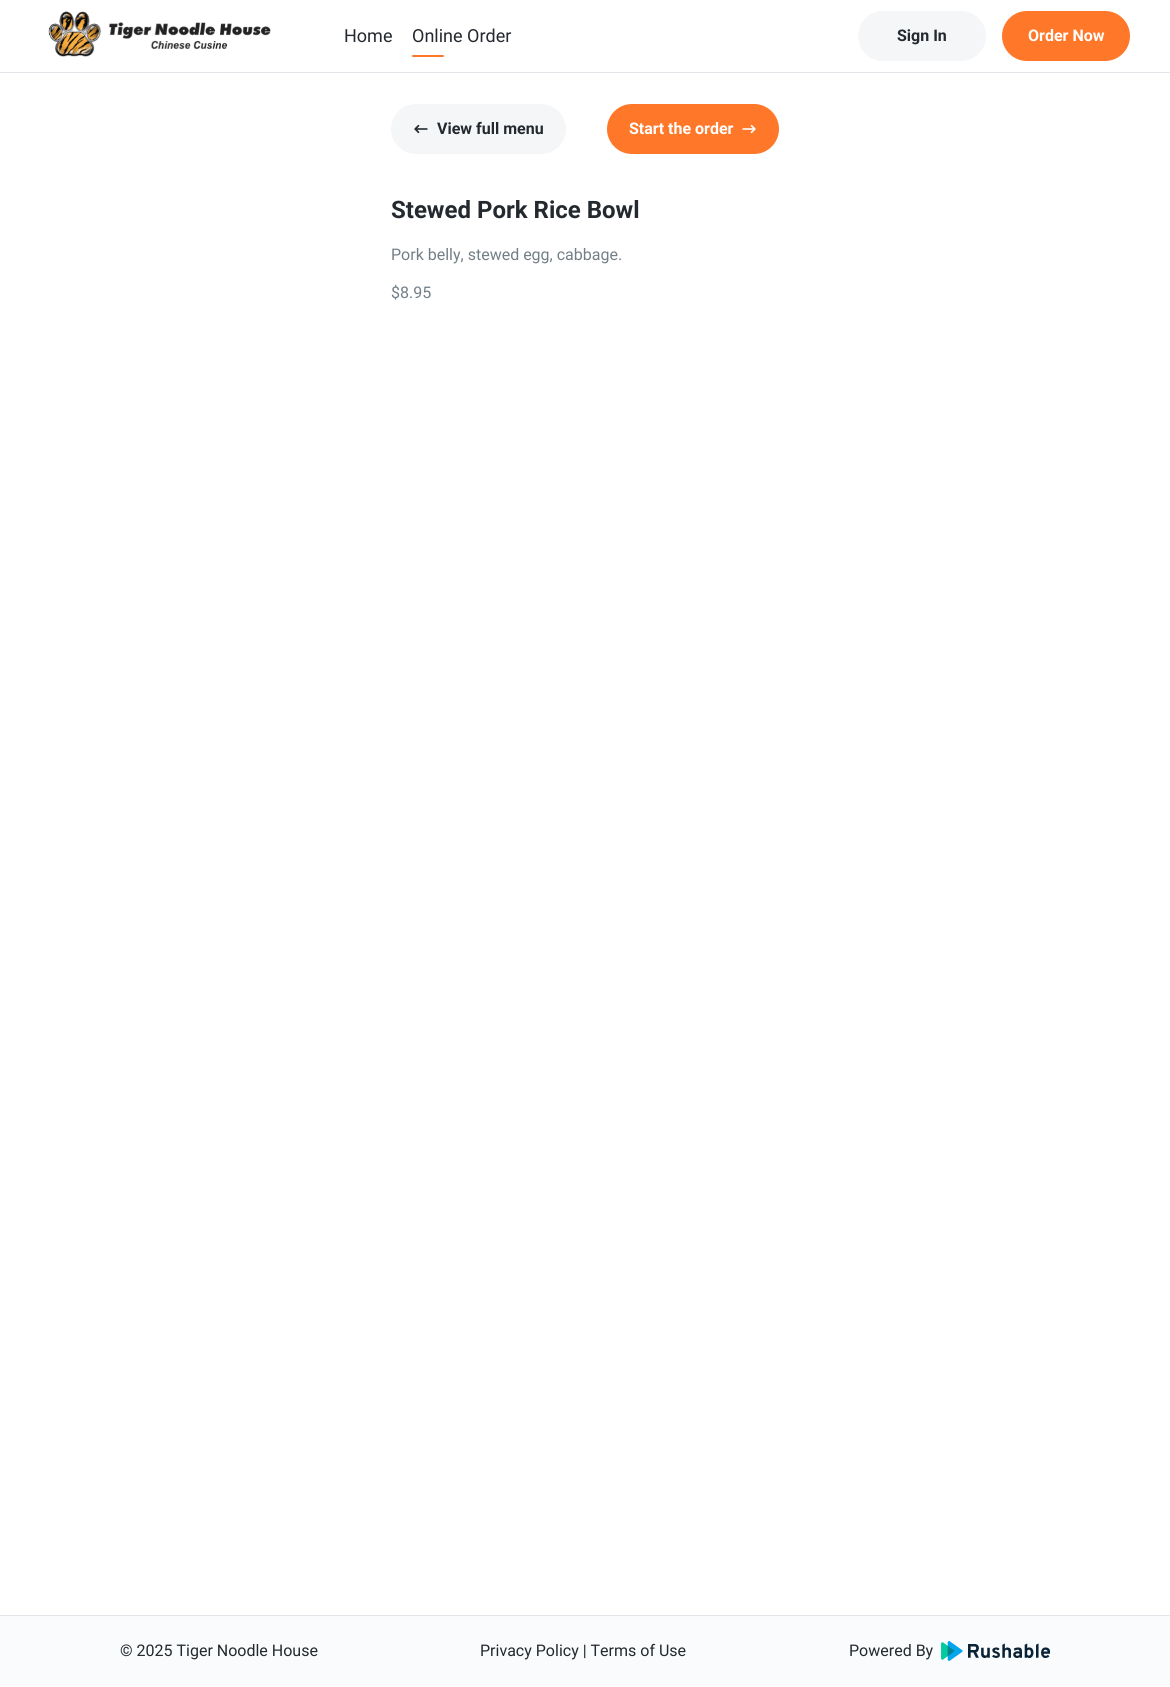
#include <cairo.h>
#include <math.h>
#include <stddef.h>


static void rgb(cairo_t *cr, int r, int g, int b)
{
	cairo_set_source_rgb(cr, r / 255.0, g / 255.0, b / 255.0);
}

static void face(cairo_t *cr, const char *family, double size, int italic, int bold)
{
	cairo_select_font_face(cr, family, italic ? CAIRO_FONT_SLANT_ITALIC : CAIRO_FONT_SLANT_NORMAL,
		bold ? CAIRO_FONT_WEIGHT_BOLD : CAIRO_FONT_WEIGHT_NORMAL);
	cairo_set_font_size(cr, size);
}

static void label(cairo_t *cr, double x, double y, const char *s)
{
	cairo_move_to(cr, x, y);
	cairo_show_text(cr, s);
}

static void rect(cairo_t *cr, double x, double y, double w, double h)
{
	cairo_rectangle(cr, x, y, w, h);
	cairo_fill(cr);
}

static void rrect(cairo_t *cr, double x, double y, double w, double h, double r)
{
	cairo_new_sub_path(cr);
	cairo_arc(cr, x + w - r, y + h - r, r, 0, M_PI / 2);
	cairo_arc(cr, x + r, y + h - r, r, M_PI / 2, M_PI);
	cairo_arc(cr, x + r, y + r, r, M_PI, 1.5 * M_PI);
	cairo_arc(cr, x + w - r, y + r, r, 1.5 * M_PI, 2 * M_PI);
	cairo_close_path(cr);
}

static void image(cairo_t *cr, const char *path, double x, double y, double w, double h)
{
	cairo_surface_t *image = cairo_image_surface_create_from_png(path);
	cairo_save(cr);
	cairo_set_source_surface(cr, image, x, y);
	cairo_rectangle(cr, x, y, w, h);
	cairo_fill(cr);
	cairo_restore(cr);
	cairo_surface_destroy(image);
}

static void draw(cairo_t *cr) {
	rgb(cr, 255, 255, 255);
	cairo_paint(cr);
	rgb(cr, 225, 229, 233);
	rect(cr, 0, 72, 1170, 1);
	image(cr, "image0.png", 48, 11, 223, 46);
	face(cr, "Roboto", 18, 0, 0);
	rgb(cr, 35, 41, 46);
	label(cr, 344, 42, "Home");
	label(cr, 412, 42, "Online Order");
	rgb(cr, 255, 120, 41);
	rrect(cr, 412, 55, 32, 2, 1);
	cairo_fill(cr);
	rgb(cr, 244, 246, 248);
	rrect(cr, 859, 12, 126, 48, 24);
	cairo_fill_preserve(cr);
	cairo_stroke(cr);
	face(cr, "Roboto", 16, 0, 1);
	rgb(cr, 35, 41, 46);
	label(cr, 897, 41, "Sign In");
	rgb(cr, 255, 120, 41);
	rrect(cr, 1003, 12, 126, 48, 24);
	cairo_fill_preserve(cr);
	cairo_stroke(cr);
	rgb(cr, 255, 255, 255);
	label(cr, 1028, 41, "Order Now");
	rgb(cr, 244, 246, 248);
	rrect(cr, 392, 105, 173, 48, 24);
	cairo_fill_preserve(cr);
	cairo_stroke(cr);
	image(cr, "image1.png", 414, 124, 14, 10);
	rgb(cr, 35, 41, 46);
	label(cr, 437, 134, "View full menu");
	rgb(cr, 255, 120, 41);
	rrect(cr, 608, 105, 170, 48, 24);
	cairo_fill_preserve(cr);
	cairo_stroke(cr);
	rgb(cr, 255, 255, 255);
	label(cr, 629, 134, "Start the order");
	image(cr, "image2.png", 742, 124, 14, 10);
	face(cr, "Roboto", 24, 0, 1);
	rgb(cr, 35, 41, 46);
	label(cr, 391, 218, "Stewed Pork Rice Bowl");
	face(cr, "Roboto", 16, 0, 0);
	rgb(cr, 115, 127, 135);
	label(cr, 391, 260, "Pork belly, stewed egg, cabbage.");
	label(cr, 391, 298, "$8.95");
	rgb(cr, 250, 251, 252);
	rect(cr, 0, 1616, 1170, 70);
	rgb(cr, 225, 229, 233);
	rect(cr, 0, 1615, 1170, 1);
	rgb(cr, 35, 41, 46);
	label(cr, 120, 1656, "© 2025 Tiger Noodle House");
	label(cr, 480, 1656, "Privacy Policy | Terms of Use");
	label(cr, 849, 1656, "Powered By");
	image(cr, "image3.png", 941, 1641, 109, 20);
}

int main(void) {
	cairo_surface_t *surface = cairo_image_surface_create(CAIRO_FORMAT_RGB24, 1170, 1687);
	cairo_t *cr = cairo_create(surface);
	cairo_font_options_t *options = cairo_font_options_create();
	cairo_font_options_set_hint_metrics(options, CAIRO_HINT_METRICS_OFF);
	cairo_font_options_set_hint_style(options, CAIRO_HINT_STYLE_NONE);
	cairo_set_font_options(cr, options);
	cairo_set_miter_limit(cr, 4);
	draw(cr);
	cairo_surface_write_to_png(surface, "render.png");
	cairo_font_options_destroy(options);
	cairo_destroy(cr);
	cairo_surface_destroy(surface);
	return 0;
}
